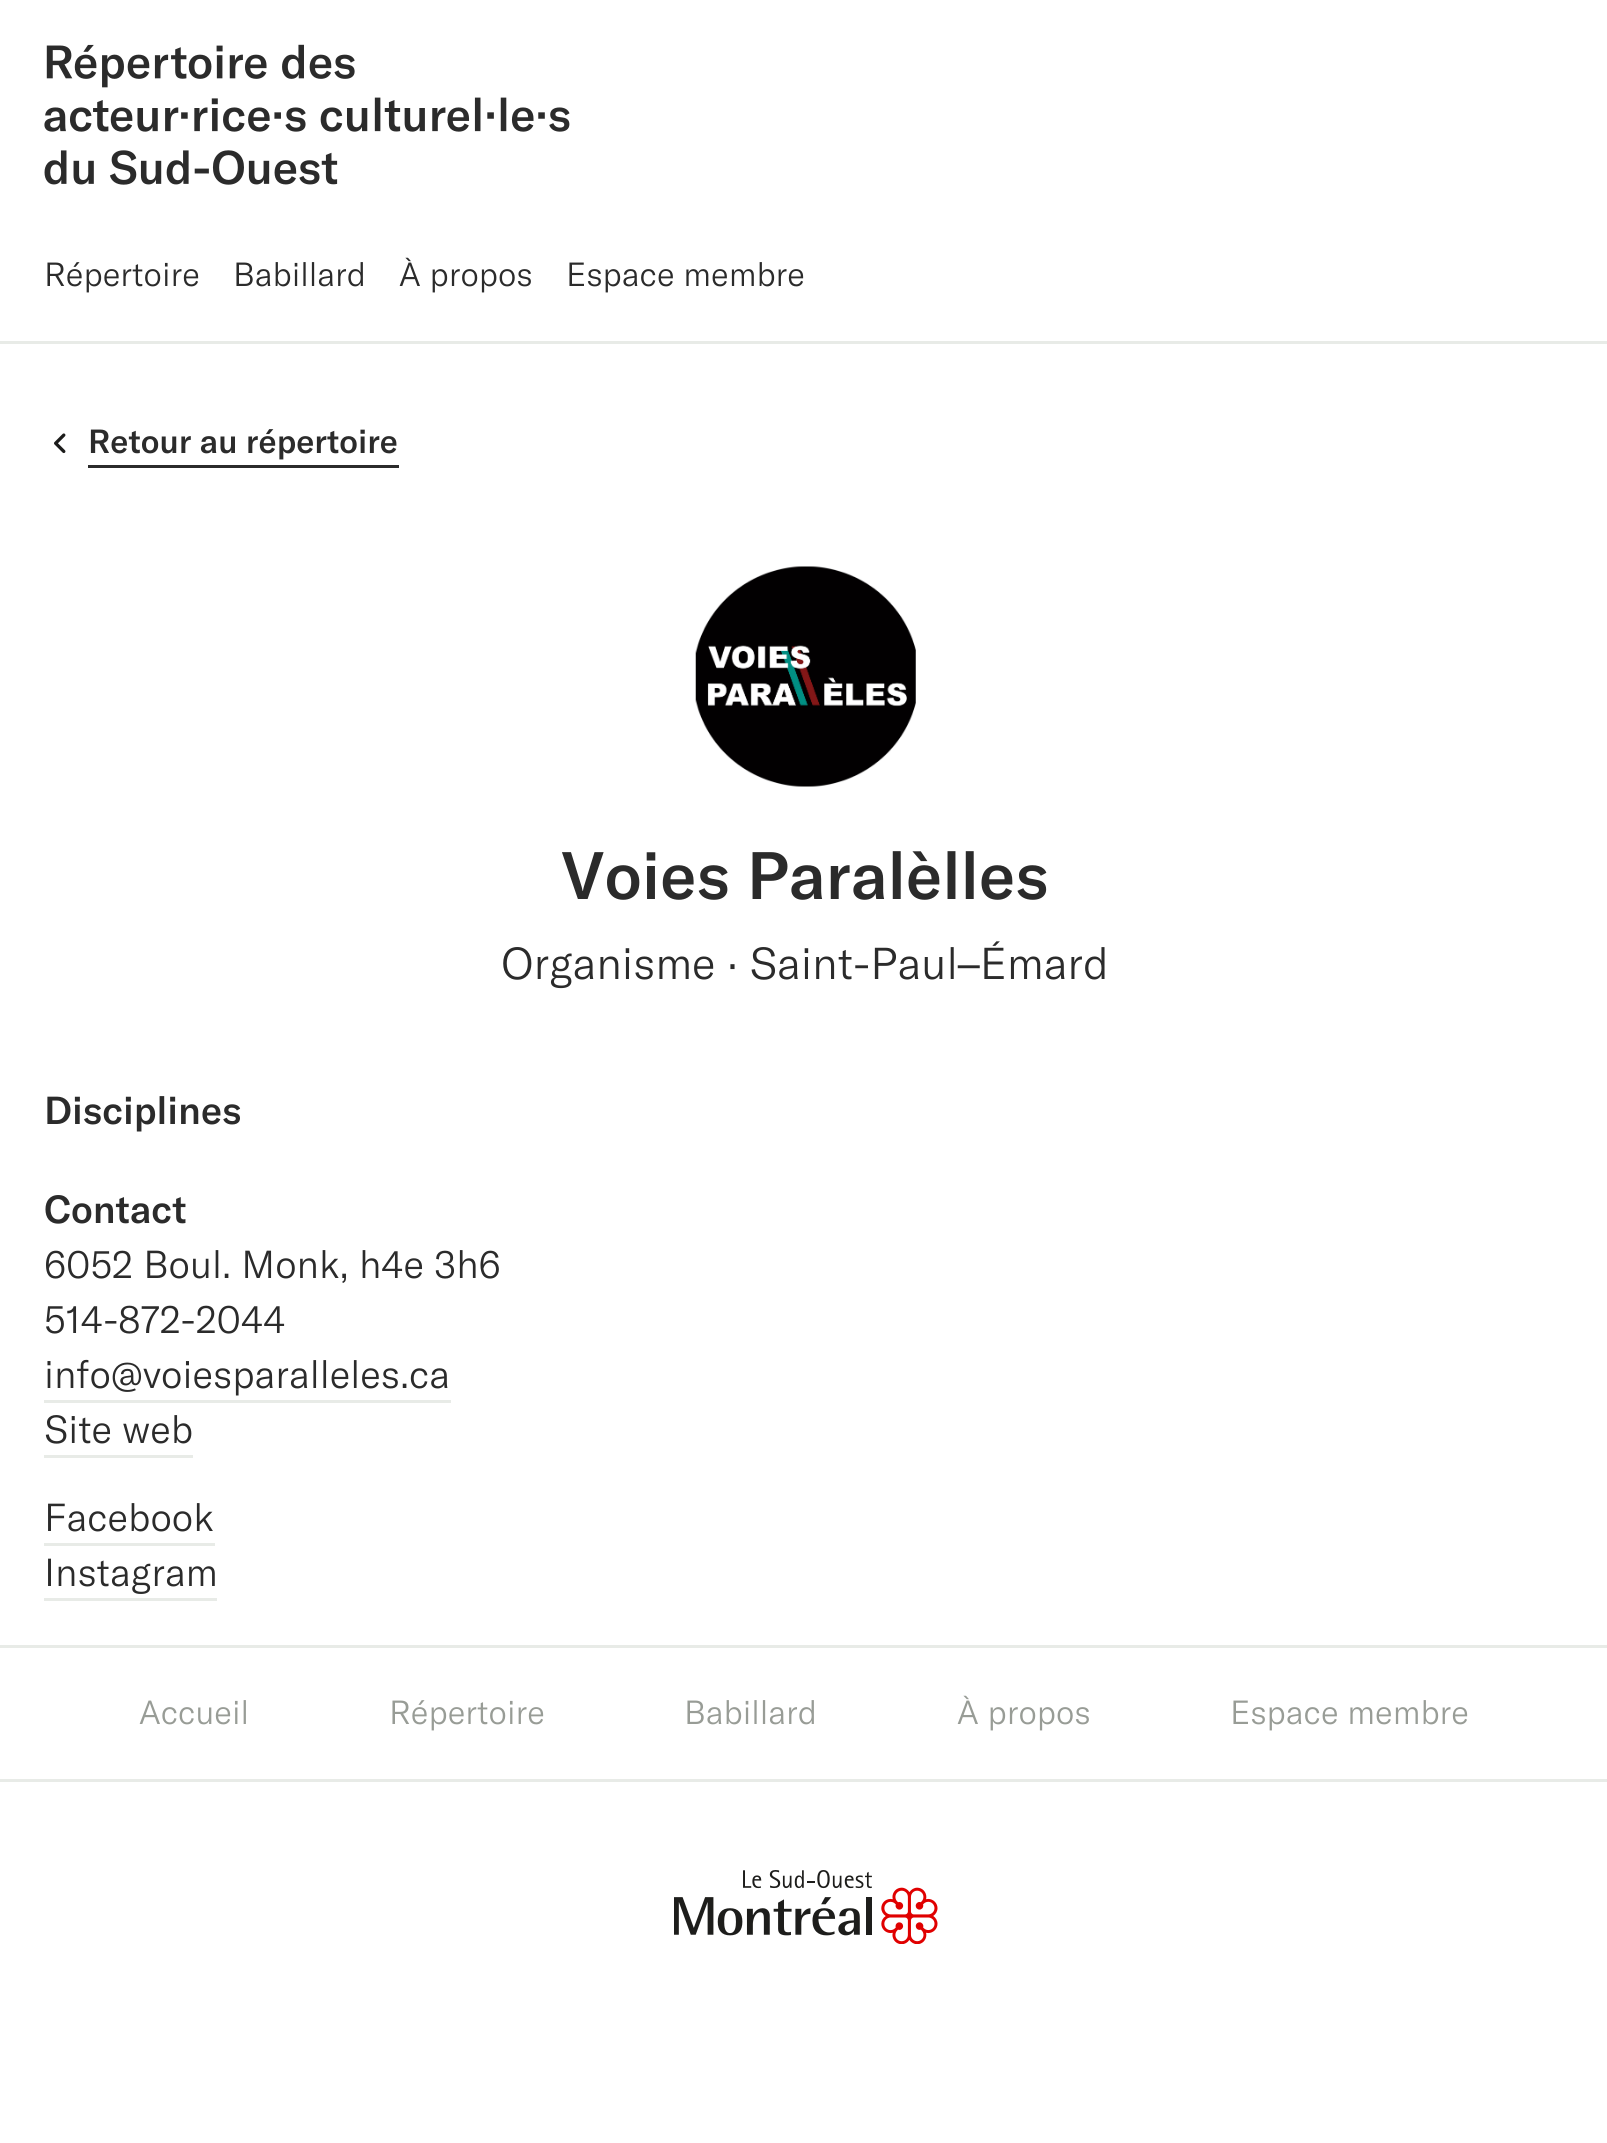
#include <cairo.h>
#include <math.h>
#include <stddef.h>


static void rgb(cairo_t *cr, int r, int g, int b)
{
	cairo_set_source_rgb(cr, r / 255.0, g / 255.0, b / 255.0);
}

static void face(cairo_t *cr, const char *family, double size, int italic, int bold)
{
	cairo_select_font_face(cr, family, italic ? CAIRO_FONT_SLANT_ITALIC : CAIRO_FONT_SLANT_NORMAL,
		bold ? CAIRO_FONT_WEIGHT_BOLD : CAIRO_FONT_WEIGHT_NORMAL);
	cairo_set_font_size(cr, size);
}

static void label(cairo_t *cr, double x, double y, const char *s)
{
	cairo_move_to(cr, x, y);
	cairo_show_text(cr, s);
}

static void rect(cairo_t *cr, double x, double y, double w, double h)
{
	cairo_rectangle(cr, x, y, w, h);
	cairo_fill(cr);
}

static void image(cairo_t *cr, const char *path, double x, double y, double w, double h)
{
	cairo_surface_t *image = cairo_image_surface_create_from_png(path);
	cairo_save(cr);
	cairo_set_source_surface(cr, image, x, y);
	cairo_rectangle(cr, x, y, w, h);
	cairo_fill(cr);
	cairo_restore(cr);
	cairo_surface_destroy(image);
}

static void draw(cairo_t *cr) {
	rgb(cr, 255, 255, 255);
	cairo_paint(cr);
	rgb(cr, 232, 235, 231);
	rect(cr, 0, 341, 1607, 3);
	image(cr, "image0.png", 44, 44, 526, 141);
	face(cr, "GT America Light", 33, 0, 0);
	rgb(cr, 43, 43, 43);
	label(cr, 44, 286, "Répertoire");
	label(cr, 233, 286, "Babillard");
	label(cr, 399, 286, "À propos");
	label(cr, 566, 286, "Espace membre");
	image(cr, "image1.png", 54, 433, 12, 21);
	rect(cr, 88, 465, 311, 3);
	face(cr, "GT America Medium", 33, 0, 0);
	label(cr, 88, 453, "Retour au répertoire");
	image(cr, "image2.png", 695, 566, 221, 221);
	face(cr, "GT America Medium", 66, 0, 0);
	label(cr, 561, 899, "Voies Paralèlles");
	face(cr, "GT America Light", 44, 0, 0);
	label(cr, 501, 979, "Organisme · Saint-Paul–Émard");
	face(cr, "GT America Medium", 38.5, 0, 0);
	label(cr, 44, 1124, "Disciplines");
	label(cr, 44, 1223, "Contact");
	face(cr, "GT America Light", 38.5, 0, 0);
	label(cr, 44, 1278, "6052 Boul. Monk, h4e 3h6");
	label(cr, 44, 1333, "514-872-2044");
	label(cr, 44, 1388, "info@voiesparalleles.ca");
	rgb(cr, 232, 235, 231);
	rect(cr, 44, 1400, 407, 3);
	rgb(cr, 43, 43, 43);
	label(cr, 44, 1443, "Site web");
	rgb(cr, 232, 235, 231);
	rect(cr, 44, 1455, 149, 3);
	rgb(cr, 43, 43, 43);
	label(cr, 44, 1531, "Facebook");
	rgb(cr, 232, 235, 231);
	rect(cr, 44, 1543, 171, 3);
	rgb(cr, 43, 43, 43);
	label(cr, 44, 1586, "Instagram");
	rgb(cr, 232, 235, 231);
	rect(cr, 44, 1598, 173, 3);
	rect(cr, 0, 1645, 1607, 3);
	rect(cr, 0, 1779, 1607, 3);
	face(cr, "GT America Light", 33, 0, 0);
	rgb(cr, 152, 156, 150);
	label(cr, 139, 1724, "Accueil");
	label(cr, 389, 1724, "Répertoire");
	label(cr, 684, 1724, "Babillard");
	label(cr, 957, 1724, "À propos");
	label(cr, 1230, 1724, "Espace membre");
	image(cr, "image3.png", 674, 1870, 264, 74);
}

int main(void) {
	cairo_surface_t *surface = cairo_image_surface_create(CAIRO_FORMAT_RGB24, 1607, 2143);
	cairo_t *cr = cairo_create(surface);
	cairo_font_options_t *options = cairo_font_options_create();
	cairo_font_options_set_hint_metrics(options, CAIRO_HINT_METRICS_OFF);
	cairo_font_options_set_hint_style(options, CAIRO_HINT_STYLE_NONE);
	cairo_set_font_options(cr, options);
	cairo_set_miter_limit(cr, 4);
	draw(cr);
	cairo_surface_write_to_png(surface, "render.png");
	cairo_font_options_destroy(options);
	cairo_destroy(cr);
	cairo_surface_destroy(surface);
	return 0;
}
